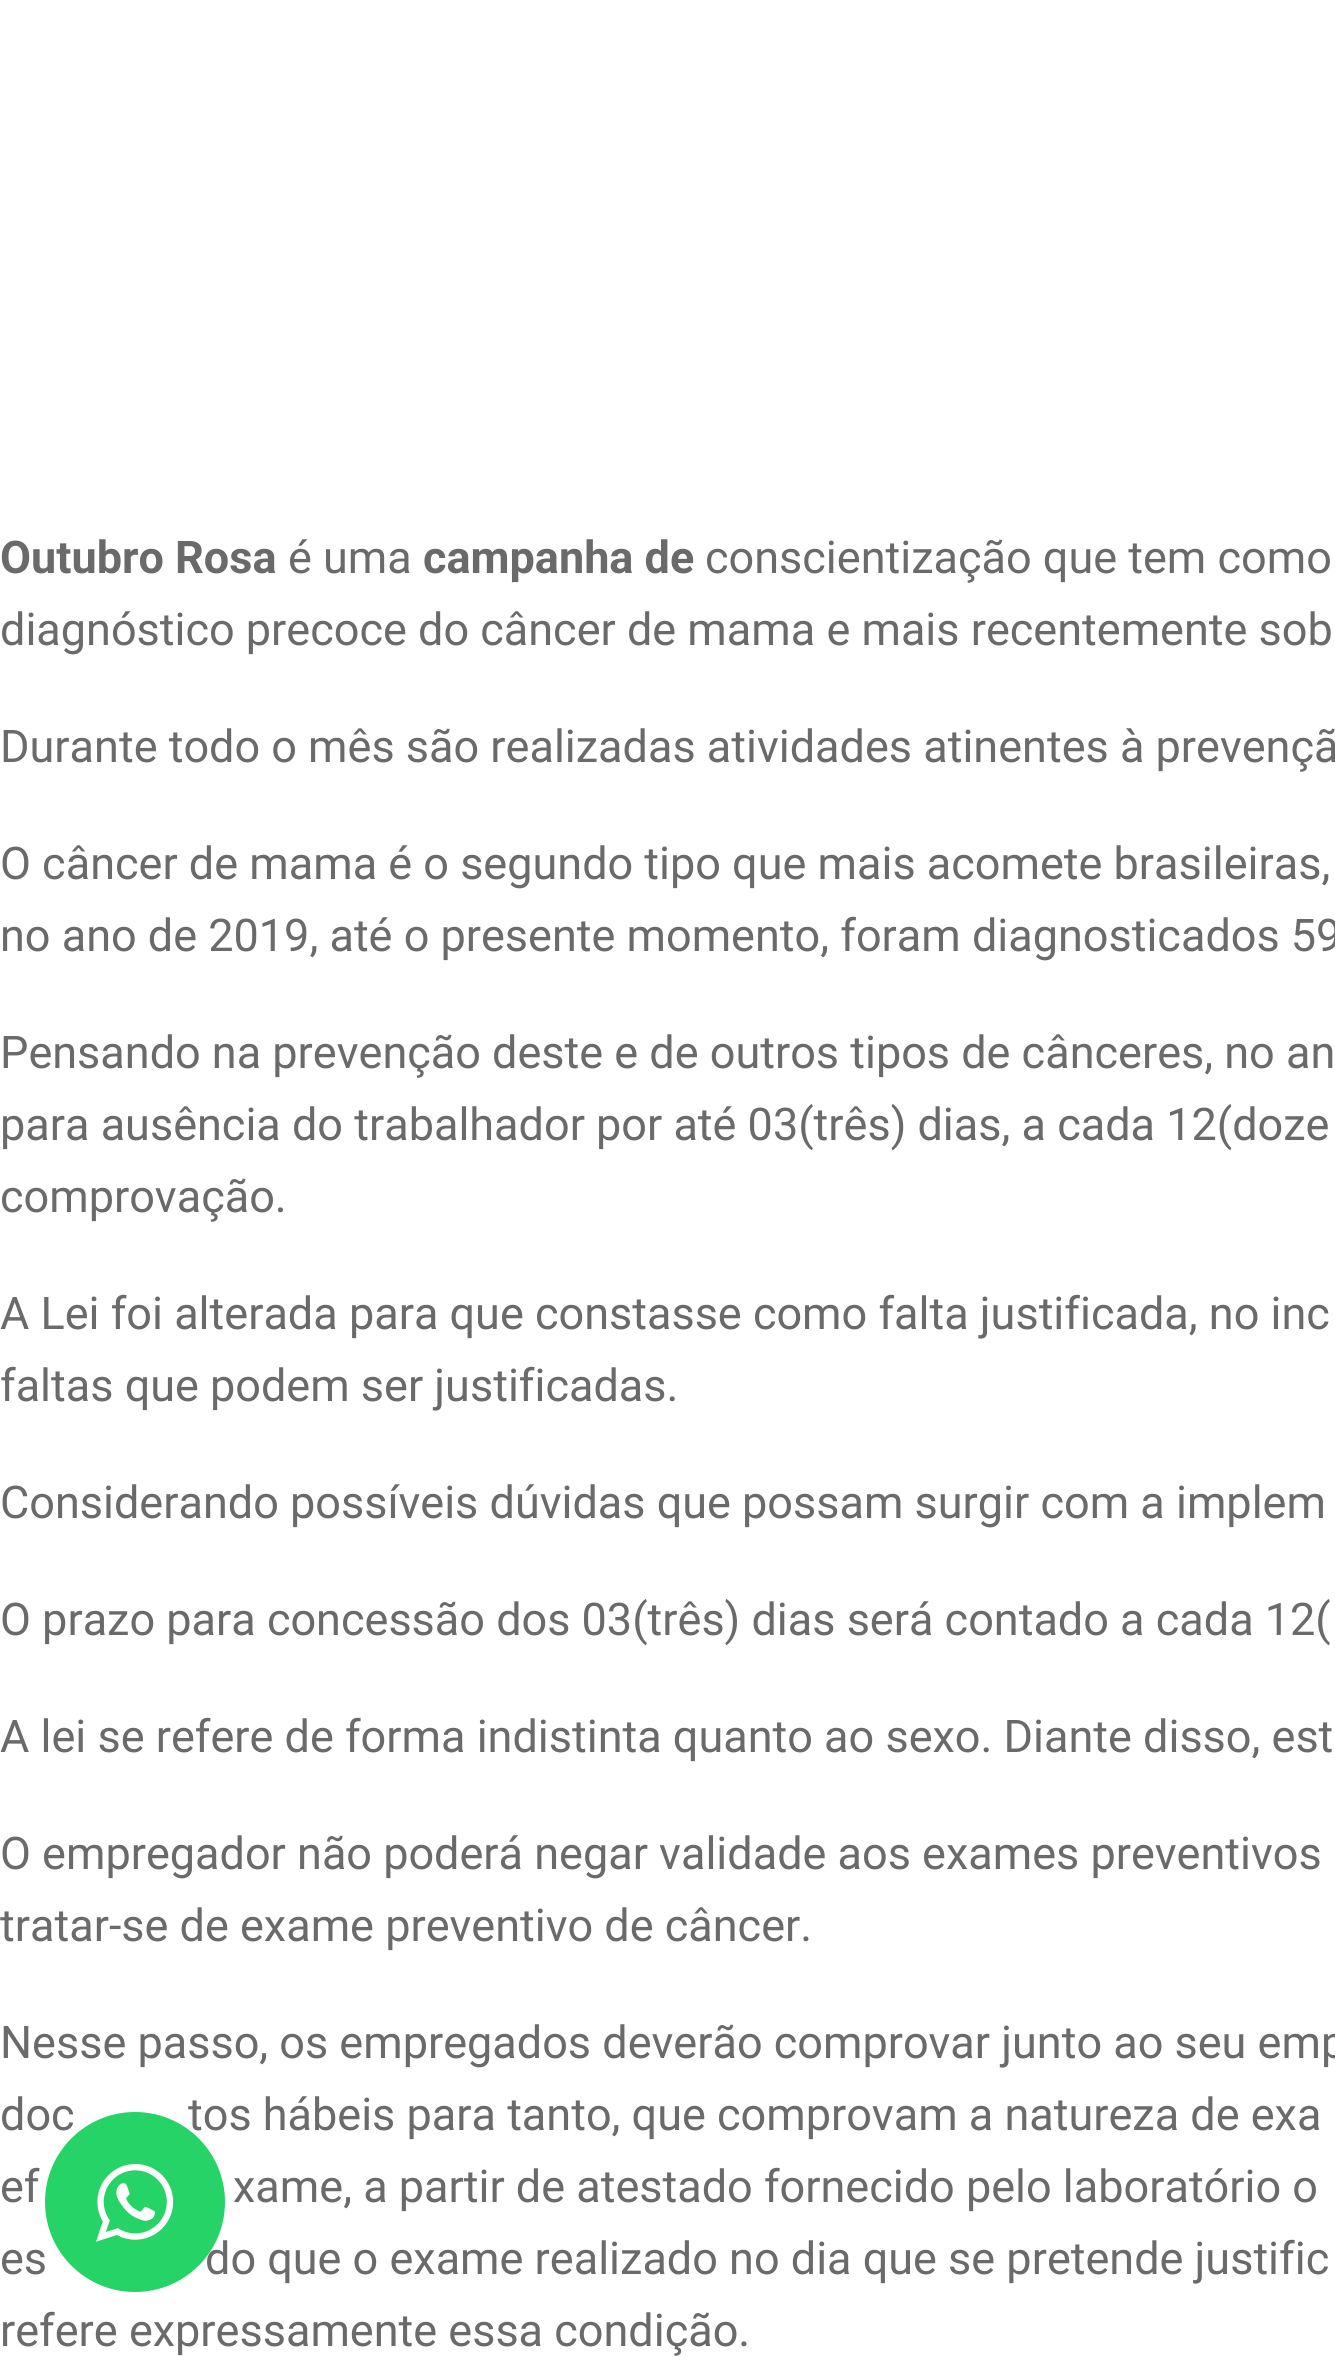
#include <cairo.h>
#include <math.h>
#include <stddef.h>


static void rgb(cairo_t *cr, int r, int g, int b)
{
	cairo_set_source_rgb(cr, r / 255.0, g / 255.0, b / 255.0);
}

static void face(cairo_t *cr, const char *family, double size, int italic, int bold)
{
	cairo_select_font_face(cr, family, italic ? CAIRO_FONT_SLANT_ITALIC : CAIRO_FONT_SLANT_NORMAL,
		bold ? CAIRO_FONT_WEIGHT_BOLD : CAIRO_FONT_WEIGHT_NORMAL);
	cairo_set_font_size(cr, size);
}

static void label(cairo_t *cr, double x, double y, const char *s)
{
	cairo_move_to(cr, x, y);
	cairo_show_text(cr, s);
}

static void image(cairo_t *cr, const char *path, double x, double y, double w, double h)
{
	cairo_surface_t *image = cairo_image_surface_create_from_png(path);
	cairo_save(cr);
	cairo_set_source_surface(cr, image, x, y);
	cairo_rectangle(cr, x, y, w, h);
	cairo_fill(cr);
	cairo_restore(cr);
	cairo_surface_destroy(image);
}

static void draw(cairo_t *cr) {
	rgb(cr, 255, 255, 255);
	cairo_paint(cr);
	face(cr, "Roboto", 45, 0, 1);
	rgb(cr, 106, 106, 106);
	label(cr, 0, 573, "Outubro Rosa");
	face(cr, "Roboto", 45, 0, 0);
	label(cr, 288, 573, "é uma");
	face(cr, "Roboto", 45, 0, 1);
	label(cr, 423, 573, "campanha de");
	face(cr, "Roboto", 45, 0, 0);
	label(cr, 705, 573, "conscientização que tem como");
	label(cr, 0, 645, "diagnóstico precoce do câncer de mama e mais recentemente sob");
	label(cr, 0, 762, "Durante todo o mês são realizadas atividades atinentes à prevençã");
	label(cr, 0, 879, "O câncer de mama é o segundo tipo que mais acomete brasileiras,");
	label(cr, 0, 951, "no ano de 2019, até o presente momento, foram diagnosticados 59");
	label(cr, 0, 1068, "Pensando na prevenção deste e de outros tipos de cânceres, no an");
	label(cr, 0, 1140, "para ausência do trabalhador por até 03(três) dias, a cada 12(doze");
	label(cr, 0, 1212, "comprovação.");
	label(cr, 0, 1329, "A Lei foi alterada para que constasse como falta justificada, no inc");
	label(cr, 0, 1401, "faltas que podem ser justificadas.");
	label(cr, 0, 1518, "Considerando possíveis dúvidas que possam surgir com a implem");
	label(cr, 0, 1635, "O prazo para concessão dos 03(três) dias será contado a cada 12(");
	label(cr, 0, 1752, "A lei se refere de forma indistinta quanto ao sexo. Diante disso, est");
	label(cr, 0, 1869, "O empregador não poderá negar validade aos exames preventivos");
	label(cr, 0, 1941, "tratar-se de exame preventivo de câncer.");
	label(cr, 0, 2058, "Nesse passo, os empregados deverão comprovar junto ao seu emp");
	label(cr, 0, 2130, "doc");
	label(cr, 188, 2130, "tos hábeis para tanto, que comprovam a natureza de exa");
	label(cr, 0, 2202, "ef");
	label(cr, 233, 2202, "xame, a partir de atestado fornecido pelo laboratório o");
	label(cr, 0, 2274, "es");
	label(cr, 205, 2274, "do que o exame realizado no dia que se pretende justific");
	label(cr, 0, 2346, "refere expressamente essa condição.");
	rgb(cr, 37, 211, 102);
	cairo_new_path(cr);
	cairo_arc(cr, 135, 2202, 90, 0, 2 * M_PI);
	cairo_fill(cr);
	image(cr, "image0.png", 96, 2164, 78, 78);
}

int main(void) {
	cairo_surface_t *surface = cairo_image_surface_create(CAIRO_FORMAT_RGB24, 1335, 2380);
	cairo_t *cr = cairo_create(surface);
	cairo_font_options_t *options = cairo_font_options_create();
	cairo_font_options_set_hint_metrics(options, CAIRO_HINT_METRICS_OFF);
	cairo_font_options_set_hint_style(options, CAIRO_HINT_STYLE_NONE);
	cairo_set_font_options(cr, options);
	cairo_set_miter_limit(cr, 4);
	draw(cr);
	cairo_surface_write_to_png(surface, "render.png");
	cairo_font_options_destroy(options);
	cairo_destroy(cr);
	cairo_surface_destroy(surface);
	return 0;
}
